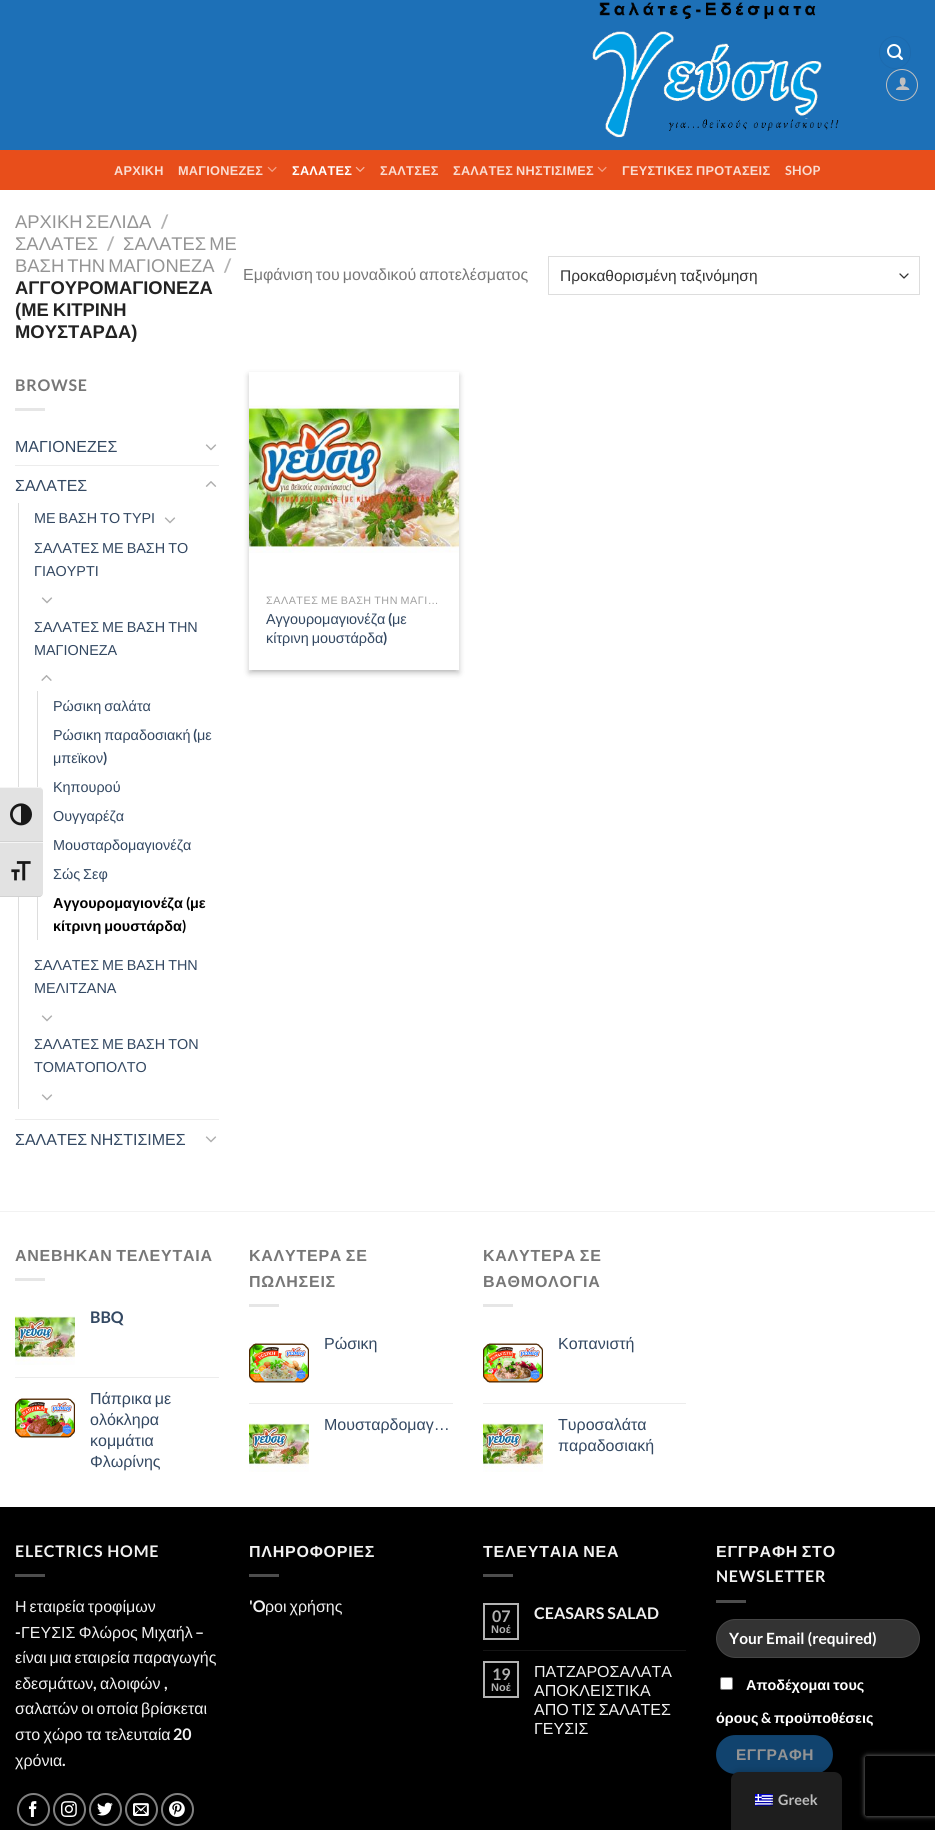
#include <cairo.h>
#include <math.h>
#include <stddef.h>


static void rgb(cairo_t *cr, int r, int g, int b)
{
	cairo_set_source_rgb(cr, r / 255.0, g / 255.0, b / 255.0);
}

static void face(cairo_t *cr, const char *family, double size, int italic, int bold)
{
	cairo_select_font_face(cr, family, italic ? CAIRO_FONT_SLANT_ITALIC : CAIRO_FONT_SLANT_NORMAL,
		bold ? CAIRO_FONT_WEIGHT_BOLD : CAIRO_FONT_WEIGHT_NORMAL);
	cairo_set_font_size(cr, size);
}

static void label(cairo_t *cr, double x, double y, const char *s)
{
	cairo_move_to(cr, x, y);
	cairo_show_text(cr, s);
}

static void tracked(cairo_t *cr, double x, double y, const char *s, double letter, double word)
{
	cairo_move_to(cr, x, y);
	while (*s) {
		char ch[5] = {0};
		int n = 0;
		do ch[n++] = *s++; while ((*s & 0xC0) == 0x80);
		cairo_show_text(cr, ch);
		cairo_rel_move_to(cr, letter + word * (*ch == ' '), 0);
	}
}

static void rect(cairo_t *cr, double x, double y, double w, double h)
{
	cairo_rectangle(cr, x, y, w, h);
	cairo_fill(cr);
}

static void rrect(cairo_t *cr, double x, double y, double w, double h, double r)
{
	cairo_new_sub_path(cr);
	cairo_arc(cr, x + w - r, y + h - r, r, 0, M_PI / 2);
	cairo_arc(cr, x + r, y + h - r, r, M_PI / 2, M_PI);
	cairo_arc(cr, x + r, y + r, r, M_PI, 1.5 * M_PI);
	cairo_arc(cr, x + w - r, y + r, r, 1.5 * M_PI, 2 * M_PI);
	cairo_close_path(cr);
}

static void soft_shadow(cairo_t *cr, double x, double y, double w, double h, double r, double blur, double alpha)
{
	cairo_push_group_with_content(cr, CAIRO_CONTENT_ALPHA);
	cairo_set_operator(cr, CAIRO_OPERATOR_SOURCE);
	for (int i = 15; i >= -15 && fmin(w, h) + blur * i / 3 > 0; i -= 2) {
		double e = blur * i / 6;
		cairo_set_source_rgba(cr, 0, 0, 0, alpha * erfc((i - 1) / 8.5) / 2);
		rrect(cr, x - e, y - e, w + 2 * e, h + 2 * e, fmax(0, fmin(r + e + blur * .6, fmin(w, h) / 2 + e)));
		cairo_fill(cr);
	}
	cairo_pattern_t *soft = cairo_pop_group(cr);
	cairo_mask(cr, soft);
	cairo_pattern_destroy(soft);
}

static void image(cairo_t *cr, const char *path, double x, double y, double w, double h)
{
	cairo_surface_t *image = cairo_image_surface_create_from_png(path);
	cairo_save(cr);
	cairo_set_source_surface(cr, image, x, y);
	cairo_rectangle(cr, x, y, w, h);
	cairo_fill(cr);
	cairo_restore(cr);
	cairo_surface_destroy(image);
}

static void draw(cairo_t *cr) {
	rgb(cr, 255, 255, 255);
	cairo_paint(cr);
	rgb(cr, 29, 112, 183);
	rect(cr, 0, 0, 935, 150);
	image(cr, "image0.png", 592, 2, 247, 136);
	rrect(cr, 879.5, 36.5, 31, 32, 15.5);
	rgb(cr, 28, 106, 174);
	cairo_set_line_width(cr, 1);
	cairo_stroke(cr);
	image(cr, "image1.png", 887, 44, 16, 16);
	cairo_arc(cr, 902, 85, 15.5, 0, 2 * M_PI);
	rgb(cr, 192, 192, 192);
	cairo_stroke(cr);
	image(cr, "image2.png", 896, 77, 14, 13);
	rgb(cr, 232, 78, 27);
	rect(cr, 0, 150, 935, 40);
	rgb(cr, 221, 82, 36);
	rect(cr, 15, 150, 905, 1);
	face(cr, "Liberation Sans", 12.75, 0, 1);
	rgb(cr, 250, 220, 209);
	tracked(cr, 114, 175, "ΑΡΧΙΚΗ", 0.25, 0);
	tracked(cr, 178, 175, "ΜΑΓΙΟΝΕΖΕΣ", 0.25, 0);
	image(cr, "image3.png", 267, 166, 10, 6);
	rgb(cr, 255, 255, 255);
	tracked(cr, 292, 175, "ΣΑΛΑΤΕΣ", 0.25, 0);
	image(cr, "image4.png", 355, 166, 10, 6);
	rgb(cr, 250, 220, 209);
	tracked(cr, 380, 175, "ΣΑΛΤΣΕΣ", 0.25, 0);
	tracked(cr, 453, 175, "ΣΑΛΑΤΕΣ ΝΗΣΤΙΣΙΜΕΣ", 0.25, -1);
	image(cr, "image3.png", 597, 166, 10, 6);
	tracked(cr, 622, 175, "ΓΕΥΣΤΙΚΕΣ ΠΡΟΤΑΣΕΙΣ", 0.25, -1);
	face(cr, "Lato", 12.75, 0, 1);
	tracked(cr, 785, 175, "SHOP", 0.25, 0);
	face(cr, "Liberation Sans", 18.4, 0, 0);
	rgb(cr, 148, 148, 148);
	tracked(cr, 15, 228, "ΑΡΧΙΚΗ ΣΕΛΙΔΑ", 0, -2);
	face(cr, "Lato", 18.4, 0, 1);
	rgb(cr, 178, 178, 178);
	label(cr, 161, 228, "/");
	face(cr, "Liberation Sans", 18.4, 0, 0);
	rgb(cr, 148, 148, 148);
	label(cr, 15, 250, "ΣΑΛΑΤΕΣ");
	face(cr, "Lato", 18.4, 0, 1);
	rgb(cr, 178, 178, 178);
	label(cr, 107, 250, "/");
	face(cr, "Liberation Sans", 18.4, 0, 0);
	rgb(cr, 148, 148, 148);
	tracked(cr, 123, 250, "ΣΑΛΑΤΕΣ ΜΕ", 0, -2);
	tracked(cr, 15, 272, "ΒΑΣΗ ΤΗΝ ΜΑΓΙΟΝΕΖΑ", 0, -2);
	face(cr, "Lato", 18.4, 0, 1);
	rgb(cr, 178, 178, 178);
	label(cr, 224, 272, "/");
	face(cr, "Liberation Sans", 18.4, 0, 1);
	rgb(cr, 34, 34, 34);
	label(cr, 15, 294, "ΑΓΓΟΥΡΟΜΑΓΙΟΝΕΖΑ");
	tracked(cr, 15, 316, "(ΜΕ ΚΙΤΡΙΝΗ", 0, -1);
	label(cr, 15, 338, "ΜΟΥΣΤΑΡΔΑ)");
	face(cr, "Liberation Sans", 16, 0, 0);
	rgb(cr, 119, 119, 119);
	tracked(cr, 243, 280, "Εμφάνιση του μοναδικού αποτελέσματος", 0, -1.5);
	cairo_new_path(cr);
	cairo_move_to(cr, 900, 274);
	cairo_line_to(cr, 904, 278);
	cairo_line_to(cr, 908, 274);
	rgb(cr, 51, 51, 51);
	cairo_set_line_width(cr, 1.3);
	cairo_set_line_cap(cr, CAIRO_LINE_CAP_ROUND);
	cairo_set_line_join(cr, CAIRO_LINE_JOIN_ROUND);
	cairo_stroke(cr);
	cairo_rectangle(cr, 548.5, 256.5, 371, 38);
	rgb(cr, 221, 221, 221);
	cairo_set_line_width(cr, 1);
	cairo_set_line_cap(cr, CAIRO_LINE_CAP_BUTT);
	cairo_set_line_join(cr, CAIRO_LINE_JOIN_MITER);
	cairo_stroke(cr);
	face(cr, "Liberation Sans", 15.5, 0, 0);
	rgb(cr, 51, 51, 51);
	tracked(cr, 560, 281, "Προκαθορισμένη ταξινόμηση", 0, -1);
	face(cr, "Lato", 16, 0, 1);
	rgb(cr, 119, 119, 119);
	tracked(cr, 15, 391, "BROWSE", 0.75, 0);
	rgb(cr, 230, 230, 230);
	rect(cr, 15, 408, 30, 3);
	face(cr, "Liberation Sans", 16, 0, 0);
	rgb(cr, 51, 72, 98);
	label(cr, 15, 452, "ΜΑΓΙΟΝΕΖΕΣ");
	image(cr, "image5.png", 205, 444, 12, 7);
	rgb(cr, 236, 236, 236);
	rect(cr, 15, 465, 204, 1);
	rgb(cr, 51, 72, 98);
	label(cr, 15, 491, "ΣΑΛΑΤΕΣ");
	image(cr, "image6.png", 205, 481, 12, 6);
	rgb(cr, 221, 221, 221);
	rect(cr, 18, 503, 1, 606);
	face(cr, "Liberation Sans", 14.4, 0, 0);
	rgb(cr, 51, 72, 98);
	tracked(cr, 34, 523, "ΜΕ ΒΑΣΗ ΤΟ ΤΥΡΙ", 0, -1);
	image(cr, "image5.png", 164, 517, 12, 7);
	tracked(cr, 34, 553, "ΣΑΛΑΤΕΣ ΜΕ ΒΑΣΗ ΤΟ", 0, -1);
	label(cr, 34, 576, "ΓΙΑΟΥΡΤΙ");
	image(cr, "image5.png", 41, 597, 12, 7);
	tracked(cr, 34, 632, "ΣΑΛΑΤΕΣ ΜΕ ΒΑΣΗ ΤΗΝ", 0, -1);
	label(cr, 34, 655, "ΜΑΓΙΟΝΕΖΑ");
	image(cr, "image7.png", 41, 675, 11, 6);
	rgb(cr, 221, 221, 221);
	rect(cr, 37, 691, 1, 249);
	rgb(cr, 51, 72, 98);
	tracked(cr, 53, 711, "Ρώσικη σαλάτα", 0, -1);
	tracked(cr, 53, 740, "Ρώσικη παραδοσιακή", 0, -1);
	face(cr, "Lato", 14.4, 0, 1);
	label(cr, 193, 740, "(");
	face(cr, "Liberation Sans", 14.4, 0, 0);
	label(cr, 197, 740, "με");
	label(cr, 53, 763, "μπεϊκον");
	face(cr, "Lato", 14.4, 0, 1);
	label(cr, 103, 763, ")");
	face(cr, "Liberation Sans", 14.4, 0, 0);
	label(cr, 53, 792, "Κηπουρού");
	label(cr, 53, 821, "Ουγγαρέζα");
	label(cr, 53, 850, "Μουσταρδομαγιονέζα");
	tracked(cr, 53, 879, "Σώς Σεφ", 0, -1);
	face(cr, "Liberation Sans", 14.4, 0, 1);
	rgb(cr, 0, 0, 0);
	label(cr, 53, 908, "Αγγουρομαγιονέζα");
	face(cr, "Lato", 14.4, 0, 1);
	label(cr, 186, 908, "(");
	face(cr, "Liberation Sans", 14.4, 0, 1);
	label(cr, 190, 908, "με");
	tracked(cr, 53, 931, "κίτρινη μουστάρδα", 0, -1);
	face(cr, "Lato", 14.4, 0, 1);
	label(cr, 182, 931, ")");
	face(cr, "Liberation Sans", 14.4, 0, 0);
	rgb(cr, 51, 72, 98);
	tracked(cr, 34, 970, "ΣΑΛΑΤΕΣ ΜΕ ΒΑΣΗ ΤΗΝ", 0, -1);
	label(cr, 34, 993, "ΜΕΛΙΤΖΑΝΑ");
	image(cr, "image5.png", 41, 1015, 12, 7);
	tracked(cr, 34, 1049, "ΣΑΛΑΤΕΣ ΜΕ ΒΑΣΗ ΤΟΝ", 0, -1);
	label(cr, 34, 1072, "ΤΟΜΑΤΟΠΟΛΤΟ");
	image(cr, "image5.png", 41, 1094, 12, 7);
	rgb(cr, 236, 236, 236);
	rect(cr, 15, 1119, 204, 1);
	face(cr, "Liberation Sans", 16, 0, 0);
	rgb(cr, 51, 72, 98);
	tracked(cr, 15, 1145, "ΣΑΛΑΤΕΣ ΝΗΣΤΙΣΙΜΕΣ", 0, -1.5);
	image(cr, "image5.png", 205, 1136, 12, 7);
	cairo_save(cr);
	cairo_set_fill_rule(cr, CAIRO_FILL_RULE_EVEN_ODD);
	cairo_new_path(cr);
	cairo_move_to(cr, 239, 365);
	cairo_line_to(cr, 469, 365);
	cairo_line_to(cr, 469, 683);
	cairo_line_to(cr, 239, 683);
	cairo_close_path(cr);
	cairo_move_to(cr, 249, 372);
	cairo_line_to(cr, 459, 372);
	cairo_line_to(cr, 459, 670);
	cairo_line_to(cr, 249, 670);
	cairo_close_path(cr);
	cairo_clip(cr);
	rgb(cr, 0, 0, 0);
	soft_shadow(cr, 249, 375, 210, 298, 0, 3, 0.23);
	cairo_restore(cr);
	cairo_save(cr);
	cairo_rectangle(cr, 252, 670, 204, 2);
	cairo_clip(cr);
	rgb(cr, 0, 0, 0);
	soft_shadow(cr, 253, 379, 202, 290, 0, 3, 0.16);
	cairo_restore(cr);
	image(cr, "image8.png", 249, 405, 210, 148);
	face(cr, "Liberation Sans", 10.75, 0, 0);
	rgb(cr, 160, 160, 160);
	tracked(cr, 266, 604, "ΣΑΛΑΤΕΣ ΜΕ ΒΑΣΗ ΤΗΝ ΜΑΓΙ…", 0.55, -1);
	face(cr, "Liberation Sans", 14.4, 0, 0);
	rgb(cr, 51, 72, 98);
	label(cr, 266, 624, "Αγγουρομαγιονέζα");
	face(cr, "Lato", 14.4, 0, 1);
	label(cr, 388, 624, "(");
	face(cr, "Liberation Sans", 14.4, 0, 0);
	label(cr, 392, 624, "με");
	tracked(cr, 266, 643, "κίτρινη μουστάρδα", 0, -1);
	face(cr, "Lato", 14.4, 0, 1);
	label(cr, 383, 643, ")");
	rgb(cr, 242, 242, 242);
	rect(cr, 0, 1211, 935, 1);
	face(cr, "Liberation Sans", 16, 0, 1);
	rgb(cr, 119, 119, 119);
	tracked(cr, 15, 1261, "ΑΝΕΒΗΚΑΝ ΤΕΛΕΥΤΑΙΑ", 0.75, -1.5);
	rgb(cr, 230, 230, 230);
	rect(cr, 15, 1278, 30, 3);
	image(cr, "image9.png", 15, 1316, 60, 49);
	face(cr, "Lato", 16, 0, 1);
	rgb(cr, 51, 72, 98);
	label(cr, 90, 1323, "BBQ");
	rgb(cr, 236, 236, 236);
	rect(cr, 15, 1377, 204, 1);
	image(cr, "image10.png", 15, 1398, 60, 40);
	face(cr, "Liberation Sans", 16, 0, 0);
	rgb(cr, 51, 72, 98);
	tracked(cr, 90, 1404, "Πάπρικα με", 0, -1.5);
	label(cr, 90, 1425, "ολόκληρα");
	label(cr, 90, 1446, "κομμάτια");
	label(cr, 90, 1467, "Φλωρίνης");
	face(cr, "Liberation Sans", 16, 0, 1);
	rgb(cr, 119, 119, 119);
	tracked(cr, 249, 1261, "ΚΑΛΥΤΕΡΑ ΣΕ", 0.75, -1.5);
	tracked(cr, 249, 1287, "ΠΩΛΗΣΕΙΣ", 0.75, 0);
	rgb(cr, 230, 230, 230);
	rect(cr, 249, 1304, 30, 3);
	image(cr, "image11.png", 249, 1343, 60, 40);
	face(cr, "Liberation Sans", 16, 0, 0);
	rgb(cr, 51, 72, 98);
	label(cr, 324, 1349, "Ρώσικη");
	rgb(cr, 236, 236, 236);
	rect(cr, 249, 1403, 204, 1);
	image(cr, "image12.png", 249, 1423, 60, 49);
	rgb(cr, 51, 72, 98);
	label(cr, 324, 1430, "Μουσταρδομαγ…");
	face(cr, "Liberation Sans", 16, 0, 1);
	rgb(cr, 119, 119, 119);
	tracked(cr, 483, 1261, "ΚΑΛΥΤΕΡΑ ΣΕ", 0.75, -1.5);
	tracked(cr, 483, 1287, "ΒΑΘΜΟΛΟΓΙΑ", 0.75, 0);
	rgb(cr, 230, 230, 230);
	rect(cr, 483, 1304, 30, 3);
	image(cr, "image13.png", 483, 1343, 60, 40);
	face(cr, "Liberation Sans", 16, 0, 0);
	rgb(cr, 51, 72, 98);
	label(cr, 558, 1349, "Κοπανιστή");
	rgb(cr, 236, 236, 236);
	rect(cr, 483, 1403, 203, 1);
	image(cr, "image14.png", 483, 1423, 60, 49);
	rgb(cr, 51, 72, 98);
	label(cr, 558, 1430, "Τυροσαλάτα");
	label(cr, 558, 1451, "παραδοσιακή");
	rgb(cr, 0, 0, 0);
	rect(cr, 0, 1507, 935, 323);
	face(cr, "Lato", 16, 0, 1);
	rgb(cr, 241, 241, 241);
	tracked(cr, 15, 1557, "ELECTRICS HOME", 0.75, 0);
	rgb(cr, 77, 77, 77);
	rect(cr, 15, 1574, 30, 3);
	face(cr, "Liberation Sans", 16, 0, 0);
	rgb(cr, 241, 241, 241);
	tracked(cr, 15, 1612, "Η εταιρεία τροφίμων", 0, -1.5);
	face(cr, "Lato", 16, 0, 1);
	label(cr, 15, 1638, "-");
	face(cr, "Liberation Sans", 16, 0, 0);
	tracked(cr, 21, 1638, "ΓΕΥΣΙΣ Φλώρος Μιχαήλ", 0, -1);
	face(cr, "Lato", 16, 0, 1);
	label(cr, 195, 1638, "–");
	face(cr, "Liberation Sans", 16, 0, 0);
	tracked(cr, 15, 1663, "είναι μια εταιρεία παραγωγής", 0, -1.5);
	label(cr, 15, 1689, "εδεσμάτων");
	face(cr, "Lato", 16, 0, 1);
	label(cr, 93, 1689, ",");
	face(cr, "Liberation Sans", 16, 0, 0);
	label(cr, 100, 1689, "αλοιφών");
	face(cr, "Lato", 16, 0, 1);
	label(cr, 164, 1689, ",");
	face(cr, "Liberation Sans", 16, 0, 0);
	tracked(cr, 15, 1714, "σαλατών οι οποία βρίσκεται", 0, -1.5);
	tracked(cr, 15, 1740, "στο χώρο τα τελευταία", 0, -1);
	face(cr, "Lato", 16, 0, 1);
	label(cr, 173, 1740, "20");
	face(cr, "Liberation Sans", 16, 0, 0);
	label(cr, 15, 1766, "χρόνια");
	face(cr, "Lato", 16, 0, 1);
	label(cr, 62, 1766, ".");
	cairo_new_path(cr);
	cairo_arc(cr, 33.5, 1809.5, 15.5, 0, 2 * M_PI);
	rgb(cr, 128, 128, 128);
	cairo_set_line_width(cr, 2);
	cairo_stroke(cr);
	image(cr, "image15.png", 28, 1801, 9, 16);
	cairo_arc(cr, 69.5, 1809.5, 15.5, 0, 2 * M_PI);
	cairo_stroke(cr);
	image(cr, "image16.png", 61, 1801, 16, 16);
	cairo_arc(cr, 105.5, 1809.5, 15.5, 0, 2 * M_PI);
	cairo_stroke(cr);
	image(cr, "image17.png", 97, 1802, 16, 14);
	cairo_arc(cr, 141.5, 1809.5, 15.5, 0, 2 * M_PI);
	cairo_stroke(cr);
	image(cr, "image18.png", 133, 1803, 16, 13);
	cairo_arc(cr, 177.5, 1809.5, 15.5, 0, 2 * M_PI);
	cairo_stroke(cr);
	image(cr, "image19.png", 169, 1801, 16, 16);
	face(cr, "Liberation Sans", 16, 0, 1);
	rgb(cr, 241, 241, 241);
	tracked(cr, 249, 1557, "ΠΛΗΡΟΦΟΡΙΕΣ", 0.75, 0);
	rgb(cr, 77, 77, 77);
	rect(cr, 249, 1574, 30, 3);
	face(cr, "Lato", 16, 0, 1);
	rgb(cr, 241, 241, 241);
	label(cr, 249, 1612, "'O");
	face(cr, "Liberation Sans", 16, 0, 0);
	tracked(cr, 265, 1612, "ροι χρήσης", 0, -1.5);
	face(cr, "Liberation Sans", 16, 0, 1);
	tracked(cr, 483, 1557, "ΤΕΛΕΥΤΑΙΑ ΝΕΑ", 0.75, -1.5);
	rgb(cr, 77, 77, 77);
	rect(cr, 483, 1574, 30, 3);
	cairo_rectangle(cr, 484, 1604, 34, 35);
	rgb(cr, 179, 179, 179);
	cairo_stroke(cr);
	face(cr, "Lato", 16, 0, 1);
	rgb(cr, 178, 178, 178);
	label(cr, 492, 1622, "07");
	face(cr, "Liberation Sans", 11, 0, 1);
	label(cr, 491, 1633, "Νοέ");
	face(cr, "Lato", 16, 0, 1);
	rgb(cr, 241, 241, 241);
	label(cr, 534, 1619, "CEASARS SALAD");
	rgb(cr, 20, 20, 20);
	rect(cr, 483, 1650, 203, 1);
	cairo_rectangle(cr, 484, 1662, 34, 35);
	rgb(cr, 179, 179, 179);
	cairo_stroke(cr);
	rgb(cr, 178, 178, 178);
	label(cr, 492, 1680, "19");
	face(cr, "Liberation Sans", 11, 0, 1);
	label(cr, 491, 1691, "Νοέ");
	face(cr, "Liberation Sans", 16, 0, 0);
	rgb(cr, 241, 241, 241);
	label(cr, 534, 1677, "ΠΑΤΖΑΡΟΣΑΛΑΤΑ");
	label(cr, 534, 1696, "ΑΠΟΚΛΕΙΣΤΙΚΑ");
	tracked(cr, 534, 1715, "ΑΠΟ ΤΙΣ ΣΑΛΑΤΕΣ", 0, -1.5);
	label(cr, 534, 1734, "ΓΕΥΣΙΣ");
	face(cr, "Liberation Sans", 16, 0, 1);
	tracked(cr, 716, 1557, "ΕΓΓΡΑΦΗ ΣΤΟ", 0.75, -1.5);
	face(cr, "Lato", 16, 0, 1);
	tracked(cr, 716, 1582, "NEWSLETTER", 0.75, 0);
	rgb(cr, 77, 77, 77);
	rect(cr, 716, 1600, 30, 3);
	rgb(cr, 51, 51, 51);
	rrect(cr, 716, 1619, 204, 39, 19.5);
	cairo_fill(cr);
	rrect(cr, 716.5, 1619.5, 203, 38, 19);
	cairo_set_source_rgba(cr, 1, 1, 1, 0.09);
	cairo_set_line_width(cr, 1);
	cairo_stroke(cr);
	face(cr, "Lato", 15.5, 0, 1);
	rgb(cr, 255, 255, 255);
	label(cr, 729, 1644, "Your Email (required)");
	rrect(cr, 720.5, 1677.5, 12, 12, 1.5);
	cairo_fill_preserve(cr);
	rgb(cr, 118, 118, 118);
	cairo_stroke(cr);
	face(cr, "Liberation Sans", 14.4, 0, 1);
	rgb(cr, 255, 255, 255);
	tracked(cr, 746, 1690, "Αποδέχομαι τους", 0, -1);
	label(cr, 716, 1723, "όρους");
	face(cr, "Lato", 14.4, 0, 1);
	label(cr, 761, 1723, "&");
	face(cr, "Liberation Sans", 14.4, 0, 1);
	label(cr, 774, 1723, "προϋποθέσεις");
	rgb(cr, 17, 67, 110);
	rrect(cr, 716, 1735, 117, 39, 19.5);
	cairo_fill(cr);
	cairo_rectangle(cr, 716.5, 1735.5, 116, 38);
	cairo_set_source_rgba(cr, 0, 0, 0, 0.05);
	cairo_stroke(cr);
	face(cr, "Liberation Sans", 15.5, 0, 1);
	rgb(cr, 148, 148, 148);
	tracked(cr, 736, 1760, "ΕΓΓΡΑΦΗ", 0.5, 0);
	rgb(cr, 226, 226, 226);
	cairo_new_path(cr);
	cairo_move_to(cr, 0, 787);
	cairo_line_to(cr, 39, 787);
	cairo_curve_to(cr, 41, 787, 43, 789, 43, 791);
	cairo_line_to(cr, 43, 842);
	cairo_line_to(cr, 0, 842);
	cairo_close_path(cr);
	cairo_fill(cr);
	rgb(cr, 245, 245, 245);
	cairo_new_path(cr);
	cairo_move_to(cr, 0, 787);
	cairo_line_to(cr, 0, 788);
	cairo_line_to(cr, 39, 788);
	cairo_curve_to(cr, 41, 788, 43, 789, 43, 791);
	cairo_curve_to(cr, 43, 789, 41, 787, 39, 787);
	cairo_close_path(cr);
	cairo_fill(cr);
	rgb(cr, 210, 210, 210);
	rect(cr, 0, 841, 43, 1);
	image(cr, "image20.png", 10, 803, 22, 23);
	rgb(cr, 226, 226, 226);
	cairo_new_path(cr);
	cairo_move_to(cr, 0, 842);
	cairo_line_to(cr, 43, 842);
	cairo_line_to(cr, 43, 893);
	cairo_curve_to(cr, 43, 895, 41, 897, 39, 897);
	cairo_line_to(cr, 0, 897);
	cairo_close_path(cr);
	cairo_fill(cr);
	rgb(cr, 245, 245, 245);
	rect(cr, 0, 842, 43, 1);
	rgb(cr, 210, 210, 210);
	cairo_new_path(cr);
	cairo_move_to(cr, 0, 896);
	cairo_line_to(cr, 0, 897);
	cairo_line_to(cr, 39, 897);
	cairo_curve_to(cr, 41, 897, 43, 895, 43, 893);
	cairo_curve_to(cr, 43, 895, 41, 896, 39, 896);
	cairo_close_path(cr);
	cairo_fill(cr);
	image(cr, "image21.png", 11, 861, 20, 20);
	rgb(cr, 0, 0, 0);
	soft_shadow(cr, 731, 1772, 111, 58, 8, 4, 0.25);
	rgb(cr, 30, 30, 30);
	cairo_new_path(cr);
	cairo_move_to(cr, 739, 1772);
	cairo_line_to(cr, 834, 1772);
	cairo_curve_to(cr, 838.5, 1772, 842, 1775.5, 842, 1780);
	cairo_line_to(cr, 842, 1830);
	cairo_line_to(cr, 731, 1830);
	cairo_line_to(cr, 731, 1780);
	cairo_curve_to(cr, 731, 1775.5, 734.5, 1772, 739, 1772);
	cairo_close_path(cr);
	cairo_fill(cr);
	image(cr, "image22.png", 755, 1794, 18, 12);
	face(cr, "Lato", 14.4, 0, 1);
	rgb(cr, 189, 189, 189);
	label(cr, 778, 1805, "Greek");
	cairo_save(cr);
	cairo_set_fill_rule(cr, CAIRO_FILL_RULE_EVEN_ODD);
	cairo_new_path(cr);
	cairo_move_to(cr, 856, 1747);
	cairo_line_to(cr, 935, 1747);
	cairo_line_to(cr, 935, 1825);
	cairo_line_to(cr, 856, 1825);
	cairo_close_path(cr);
	cairo_move_to(cr, 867, 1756);
	cairo_line_to(cr, 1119, 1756);
	cairo_curve_to(cr, 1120, 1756, 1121, 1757, 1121, 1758);
	cairo_line_to(cr, 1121, 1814);
	cairo_curve_to(cr, 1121, 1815, 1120, 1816, 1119, 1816);
	cairo_line_to(cr, 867, 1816);
	cairo_curve_to(cr, 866, 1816, 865, 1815, 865, 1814);
	cairo_line_to(cr, 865, 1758);
	cairo_curve_to(cr, 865, 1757, 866, 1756, 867, 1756);
	cairo_close_path(cr);
	cairo_clip(cr);
	rgb(cr, 128, 128, 128);
	soft_shadow(cr, 865, 1756, 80, 60, 2, 2.5, 1);
	cairo_restore(cr);
}

int main(void) {
	cairo_surface_t *surface = cairo_image_surface_create(CAIRO_FORMAT_RGB24, 935, 1830);
	cairo_t *cr = cairo_create(surface);
	cairo_font_options_t *options = cairo_font_options_create();
	cairo_font_options_set_hint_metrics(options, CAIRO_HINT_METRICS_OFF);
	cairo_font_options_set_hint_style(options, CAIRO_HINT_STYLE_NONE);
	cairo_set_font_options(cr, options);
	cairo_set_miter_limit(cr, 4);
	draw(cr);
	cairo_surface_write_to_png(surface, "render.png");
	cairo_font_options_destroy(options);
	cairo_destroy(cr);
	cairo_surface_destroy(surface);
	return 0;
}
